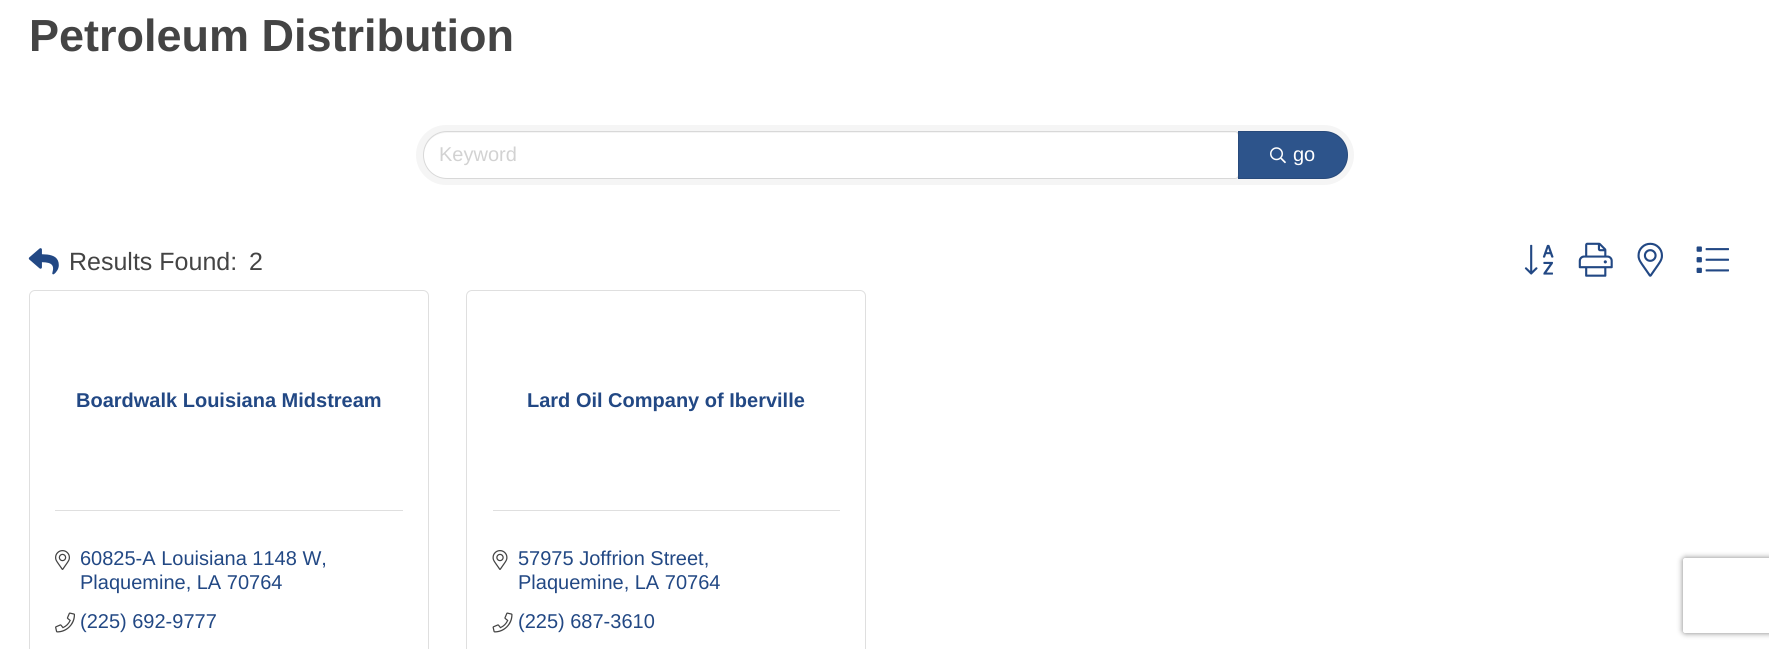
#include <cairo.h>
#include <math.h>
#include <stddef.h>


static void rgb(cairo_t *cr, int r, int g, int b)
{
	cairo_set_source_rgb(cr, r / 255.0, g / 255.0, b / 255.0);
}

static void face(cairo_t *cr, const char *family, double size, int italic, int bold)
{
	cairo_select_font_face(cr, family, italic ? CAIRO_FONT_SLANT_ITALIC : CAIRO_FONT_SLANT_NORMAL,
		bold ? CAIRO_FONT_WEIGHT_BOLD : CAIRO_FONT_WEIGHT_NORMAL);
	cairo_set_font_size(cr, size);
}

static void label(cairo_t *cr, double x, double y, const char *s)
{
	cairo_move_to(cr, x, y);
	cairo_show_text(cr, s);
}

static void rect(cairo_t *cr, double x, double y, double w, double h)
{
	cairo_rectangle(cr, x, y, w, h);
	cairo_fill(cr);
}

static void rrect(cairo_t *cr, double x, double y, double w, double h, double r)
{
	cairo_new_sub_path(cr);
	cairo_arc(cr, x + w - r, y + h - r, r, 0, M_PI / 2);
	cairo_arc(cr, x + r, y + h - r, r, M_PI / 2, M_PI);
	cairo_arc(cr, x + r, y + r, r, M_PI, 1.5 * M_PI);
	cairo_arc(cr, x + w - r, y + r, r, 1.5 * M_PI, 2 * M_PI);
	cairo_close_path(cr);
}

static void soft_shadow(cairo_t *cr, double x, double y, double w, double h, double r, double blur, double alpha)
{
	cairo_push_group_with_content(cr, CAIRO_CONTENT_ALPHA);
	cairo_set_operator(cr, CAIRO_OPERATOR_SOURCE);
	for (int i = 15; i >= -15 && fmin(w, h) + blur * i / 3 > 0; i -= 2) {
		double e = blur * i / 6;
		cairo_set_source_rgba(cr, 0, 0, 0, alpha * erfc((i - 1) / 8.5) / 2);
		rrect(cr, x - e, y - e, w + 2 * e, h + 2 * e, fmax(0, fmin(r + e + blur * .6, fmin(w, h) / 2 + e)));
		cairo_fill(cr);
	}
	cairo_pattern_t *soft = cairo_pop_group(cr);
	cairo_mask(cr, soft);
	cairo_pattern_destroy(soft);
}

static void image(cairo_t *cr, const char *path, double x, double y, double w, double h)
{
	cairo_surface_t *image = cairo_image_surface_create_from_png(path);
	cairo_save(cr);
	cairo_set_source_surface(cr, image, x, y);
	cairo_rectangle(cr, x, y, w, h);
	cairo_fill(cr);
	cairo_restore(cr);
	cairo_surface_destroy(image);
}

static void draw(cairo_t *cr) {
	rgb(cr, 255, 255, 255);
	cairo_paint(cr);
	face(cr, "Liberation Sans", 45, 0, 1);
	rgb(cr, 68, 68, 68);
	label(cr, 29, 51, "Petroleum Distribution");
	rgb(cr, 245, 245, 245);
	rrect(cr, 416, 125, 938, 60, 30);
	cairo_fill(cr);
	rgb(cr, 255, 255, 255);
	cairo_new_path(cr);
	cairo_move_to(cr, 446.5, 133);
	cairo_line_to(cr, 1235.5, 133);
	cairo_curve_to(cr, 1237, 133, 1238, 134, 1238, 135.5);
	cairo_line_to(cr, 1238, 175.5);
	cairo_curve_to(cr, 1238, 177, 1237, 178, 1235.5, 178);
	cairo_line_to(cr, 446.5, 178);
	cairo_curve_to(cr, 434, 178, 424, 168, 424, 155.5);
	cairo_curve_to(cr, 424, 143, 434, 133, 446.5, 133);
	cairo_close_path(cr);
	cairo_fill(cr);
	cairo_new_path(cr);
	cairo_move_to(cr, 447, 131.5);
	cairo_line_to(cr, 1235, 131.5);
	cairo_curve_to(cr, 1237, 131.5, 1238.5, 133, 1238.5, 135);
	cairo_line_to(cr, 1238.5, 175);
	cairo_curve_to(cr, 1238.5, 177, 1237, 178.5, 1235, 178.5);
	cairo_line_to(cr, 447, 178.5);
	cairo_curve_to(cr, 434, 178.5, 423.5, 168, 423.5, 155);
	cairo_curve_to(cr, 423.5, 142, 434, 131.5, 447, 131.5);
	cairo_close_path(cr);
	cairo_set_source_rgba(cr, 0, 0, 0, 0.12);
	cairo_set_line_width(cr, 1);
	cairo_stroke(cr);
	face(cr, "Liberation Sans", 20, 0, 0);
	rgb(cr, 210, 210, 210);
	label(cr, 439, 161, "Keyword");
	rgb(cr, 45, 84, 139);
	cairo_new_path(cr);
	cairo_move_to(cr, 1238, 131);
	cairo_line_to(cr, 1324, 131);
	cairo_curve_to(cr, 1337.5, 131, 1348, 141.5, 1348, 155);
	cairo_curve_to(cr, 1348, 168.5, 1337.5, 179, 1324, 179);
	cairo_line_to(cr, 1238, 179);
	cairo_close_path(cr);
	cairo_fill(cr);
	cairo_new_path(cr);
	cairo_move_to(cr, 1238.5, 131.5);
	cairo_line_to(cr, 1324, 131.5);
	cairo_curve_to(cr, 1337, 131.5, 1347.5, 142, 1347.5, 155);
	cairo_curve_to(cr, 1347.5, 168, 1337, 178.5, 1324, 178.5);
	cairo_line_to(cr, 1238.5, 178.5);
	cairo_close_path(cr);
	cairo_set_source_rgba(cr, 0, 0, 0, 0.12);
	cairo_stroke(cr);
	image(cr, "image0.png", 1270, 147, 16, 17);
	rgb(cr, 255, 255, 255);
	label(cr, 1293, 161, "go");
	image(cr, "image1.png", 28, 248, 31, 27);
	face(cr, "Liberation Sans", 25, 0, 0);
	rgb(cr, 68, 68, 68);
	label(cr, 69, 270, "Results Found:");
	label(cr, 249, 270, "2");
	image(cr, "image2.png", 1524, 244, 30, 31);
	image(cr, "image3.png", 1578, 242, 35, 35);
	image(cr, "image4.png", 1637, 242, 26, 35);
	image(cr, "image5.png", 1696, 246, 33, 27);
	rrect(cr, 29.5, 290.5, 399, 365, 5.5);
	rgb(cr, 223, 223, 223);
	cairo_stroke(cr);
	face(cr, "Liberation Sans", 20, 0, 1);
	rgb(cr, 34, 72, 132);
	label(cr, 76, 407, "Boardwalk Louisiana Midstream");
	rgb(cr, 223, 223, 223);
	rect(cr, 55, 510, 348, 1);
	image(cr, "image6.png", 55, 550, 15, 20);
	face(cr, "Liberation Sans", 20, 0, 0);
	rgb(cr, 34, 72, 132);
	label(cr, 80, 565, "60825-A Louisiana 1148 W,");
	label(cr, 80, 589, "Plaquemine, LA 70764");
	image(cr, "image7.png", 55, 612, 20, 21);
	label(cr, 80, 628, "(225) 692-9777");
	rrect(cr, 466.5, 290.5, 399, 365, 5.5);
	rgb(cr, 223, 223, 223);
	cairo_stroke(cr);
	face(cr, "Liberation Sans", 20, 0, 1);
	rgb(cr, 34, 72, 132);
	label(cr, 527, 407, "Lard Oil Company of Iberville");
	rgb(cr, 223, 223, 223);
	rect(cr, 493, 510, 347, 1);
	image(cr, "image8.png", 492, 550, 16, 20);
	face(cr, "Liberation Sans", 20, 0, 0);
	rgb(cr, 34, 72, 132);
	label(cr, 518, 565, "57975 Joffrion Street,");
	label(cr, 518, 589, "Plaquemine, LA 70764");
	image(cr, "image9.png", 492, 612, 21, 21);
	label(cr, 518, 628, "(225) 687-3610");
	cairo_save(cr);
	cairo_set_fill_rule(cr, CAIRO_FILL_RULE_EVEN_ODD);
	cairo_new_path(cr);
	cairo_move_to(cr, 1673, 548);
	cairo_line_to(cr, 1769, 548);
	cairo_line_to(cr, 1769, 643);
	cairo_line_to(cr, 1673, 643);
	cairo_close_path(cr);
	cairo_move_to(cr, 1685.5, 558);
	cairo_line_to(cr, 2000.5, 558);
	cairo_curve_to(cr, 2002, 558, 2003, 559, 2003, 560.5);
	cairo_line_to(cr, 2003, 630.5);
	cairo_curve_to(cr, 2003, 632, 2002, 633, 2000.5, 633);
	cairo_line_to(cr, 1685.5, 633);
	cairo_curve_to(cr, 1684, 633, 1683, 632, 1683, 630.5);
	cairo_line_to(cr, 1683, 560.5);
	cairo_curve_to(cr, 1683, 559, 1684, 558, 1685.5, 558);
	cairo_close_path(cr);
	cairo_clip(cr);
	rgb(cr, 128, 128, 128);
	soft_shadow(cr, 1683, 558, 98, 75, 2.5, 3, 1);
	cairo_restore(cr);
}

int main(void) {
	cairo_surface_t *surface = cairo_image_surface_create(CAIRO_FORMAT_RGB24, 1769, 649);
	cairo_t *cr = cairo_create(surface);
	cairo_font_options_t *options = cairo_font_options_create();
	cairo_font_options_set_hint_metrics(options, CAIRO_HINT_METRICS_OFF);
	cairo_font_options_set_hint_style(options, CAIRO_HINT_STYLE_NONE);
	cairo_set_font_options(cr, options);
	cairo_set_miter_limit(cr, 4);
	draw(cr);
	cairo_surface_write_to_png(surface, "render.png");
	cairo_font_options_destroy(options);
	cairo_destroy(cr);
	cairo_surface_destroy(surface);
	return 0;
}
